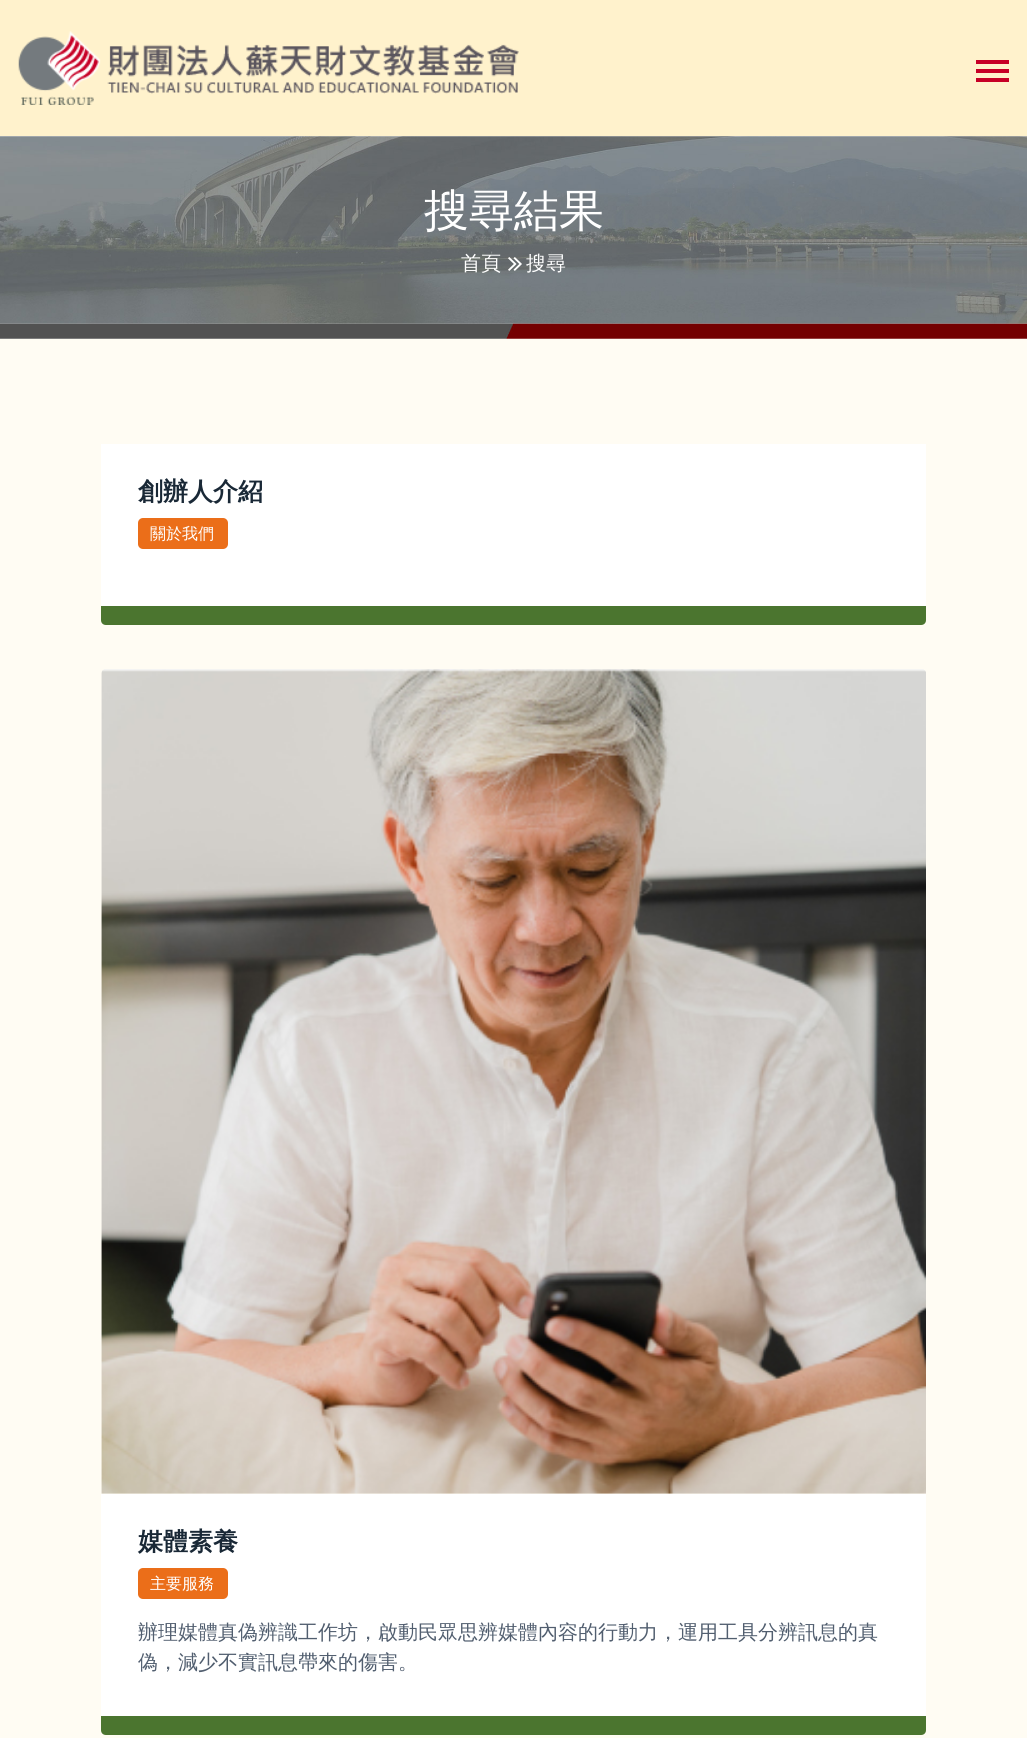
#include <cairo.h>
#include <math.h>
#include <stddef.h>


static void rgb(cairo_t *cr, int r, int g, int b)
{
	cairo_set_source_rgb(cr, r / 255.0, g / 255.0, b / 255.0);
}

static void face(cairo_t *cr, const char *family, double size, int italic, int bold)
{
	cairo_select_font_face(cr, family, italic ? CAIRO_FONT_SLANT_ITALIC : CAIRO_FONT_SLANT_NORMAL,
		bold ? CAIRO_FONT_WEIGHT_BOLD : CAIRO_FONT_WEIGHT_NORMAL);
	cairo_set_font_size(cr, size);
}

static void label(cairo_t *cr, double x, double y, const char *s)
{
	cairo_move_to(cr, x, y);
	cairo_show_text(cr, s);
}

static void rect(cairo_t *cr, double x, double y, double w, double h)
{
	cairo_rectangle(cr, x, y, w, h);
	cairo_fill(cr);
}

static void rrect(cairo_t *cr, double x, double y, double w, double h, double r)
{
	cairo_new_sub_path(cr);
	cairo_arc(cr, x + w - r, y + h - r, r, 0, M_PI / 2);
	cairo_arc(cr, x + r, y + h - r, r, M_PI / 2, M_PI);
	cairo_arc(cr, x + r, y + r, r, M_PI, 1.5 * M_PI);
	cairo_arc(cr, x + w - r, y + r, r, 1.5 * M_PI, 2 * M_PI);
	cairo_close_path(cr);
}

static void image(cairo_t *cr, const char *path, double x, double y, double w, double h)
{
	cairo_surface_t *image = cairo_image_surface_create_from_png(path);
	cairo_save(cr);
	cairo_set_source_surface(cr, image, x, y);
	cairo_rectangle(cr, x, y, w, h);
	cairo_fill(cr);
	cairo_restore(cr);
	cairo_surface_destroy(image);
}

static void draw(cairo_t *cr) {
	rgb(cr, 255, 255, 255);
	cairo_paint(cr);
	rgb(cr, 255, 242, 204);
	rect(cr, 0, 0, 1027, 136);
	image(cr, "image0.png", 18, 31, 501, 74);
	rgb(cr, 199, 0, 38);
	rect(cr, 976, 60, 33, 4);
	rect(cr, 976, 69, 33, 4);
	rect(cr, 976, 78, 33, 4);
	image(cr, "image1.png", 0, 136, 1027, 188);
	face(cr, "WenQuanYi Zen Hei Medium", 45, 0, 0);
	rgb(cr, 255, 255, 255);
	label(cr, 424, 226, "搜尋結果");
	face(cr, "WenQuanYi Zen Hei Medium", 20, 0, 0);
	label(cr, 461, 270, "首頁");
	image(cr, "image2.png", 508, 257, 14, 14);
	label(cr, 526, 270, "搜尋");
	image(cr, "image3.png", 0, 323, 1027, 16);
	rgb(cr, 255, 252, 243);
	rect(cr, 0, 339, 1027, 1399);
	rgb(cr, 255, 255, 255);
	rect(cr, 101, 444, 825, 162);
	face(cr, "WenQuanYi Zen Hei", 25, 0, 1);
	rgb(cr, 25, 40, 54);
	label(cr, 138, 500, "創辦人介紹");
	rgb(cr, 235, 110, 25);
	rrect(cr, 138, 518, 90, 31, 5);
	cairo_fill(cr);
	face(cr, "WenQuanYi Zen Hei Medium", 16, 0, 0);
	rgb(cr, 255, 255, 255);
	label(cr, 150, 539, "關於我們");
	rgb(cr, 75, 117, 47);
	cairo_new_path(cr);
	cairo_move_to(cr, 101, 606);
	cairo_line_to(cr, 926, 606);
	cairo_line_to(cr, 926, 620);
	cairo_curve_to(cr, 926, 623, 924, 625, 921, 625);
	cairo_line_to(cr, 106, 625);
	cairo_curve_to(cr, 103, 625, 101, 623, 101, 620);
	cairo_close_path(cr);
	cairo_fill(cr);
	image(cr, "image4.png", 101, 669, 825, 825);
	rgb(cr, 255, 255, 255);
	rect(cr, 101, 1494, 825, 222);
	face(cr, "WenQuanYi Zen Hei", 25, 0, 1);
	rgb(cr, 25, 40, 54);
	label(cr, 138, 1550, "媒體素養");
	rgb(cr, 235, 110, 25);
	rrect(cr, 138, 1568, 90, 31, 5);
	cairo_fill(cr);
	face(cr, "WenQuanYi Zen Hei Medium", 16, 0, 0);
	rgb(cr, 255, 255, 255);
	label(cr, 150, 1589, "主要服務");
	face(cr, "WenQuanYi Zen Hei Medium", 20, 0, 0);
	rgb(cr, 81, 94, 111);
	label(cr, 138, 1639, "辦理媒體真偽辨識工作坊，啟動民眾思辨媒體內容的行動力，運用工具分辨訊息的真");
	label(cr, 138, 1669, "偽，減少不實訊息帶來的傷害。");
	rgb(cr, 75, 117, 47);
	cairo_new_path(cr);
	cairo_move_to(cr, 101, 1716);
	cairo_line_to(cr, 926, 1716);
	cairo_line_to(cr, 926, 1730);
	cairo_curve_to(cr, 926, 1733, 924, 1735, 921, 1735);
	cairo_line_to(cr, 106, 1735);
	cairo_curve_to(cr, 103, 1735, 101, 1733, 101, 1730);
	cairo_close_path(cr);
	cairo_fill(cr);
}

int main(void) {
	cairo_surface_t *surface = cairo_image_surface_create(CAIRO_FORMAT_RGB24, 1027, 1738);
	cairo_t *cr = cairo_create(surface);
	cairo_font_options_t *options = cairo_font_options_create();
	cairo_font_options_set_hint_metrics(options, CAIRO_HINT_METRICS_OFF);
	cairo_font_options_set_hint_style(options, CAIRO_HINT_STYLE_NONE);
	cairo_set_font_options(cr, options);
	cairo_set_miter_limit(cr, 4);
	draw(cr);
	cairo_surface_write_to_png(surface, "render.png");
	cairo_font_options_destroy(options);
	cairo_destroy(cr);
	cairo_surface_destroy(surface);
	return 0;
}
